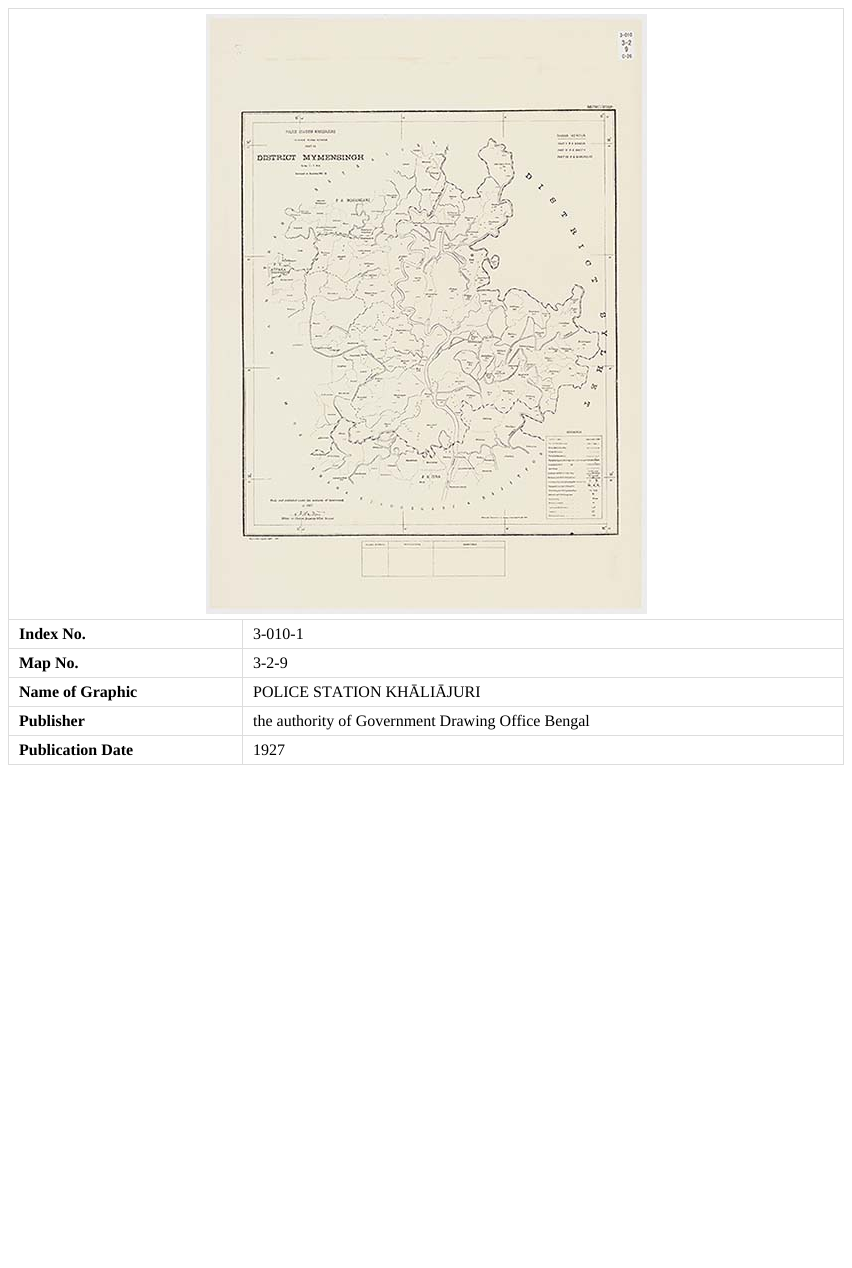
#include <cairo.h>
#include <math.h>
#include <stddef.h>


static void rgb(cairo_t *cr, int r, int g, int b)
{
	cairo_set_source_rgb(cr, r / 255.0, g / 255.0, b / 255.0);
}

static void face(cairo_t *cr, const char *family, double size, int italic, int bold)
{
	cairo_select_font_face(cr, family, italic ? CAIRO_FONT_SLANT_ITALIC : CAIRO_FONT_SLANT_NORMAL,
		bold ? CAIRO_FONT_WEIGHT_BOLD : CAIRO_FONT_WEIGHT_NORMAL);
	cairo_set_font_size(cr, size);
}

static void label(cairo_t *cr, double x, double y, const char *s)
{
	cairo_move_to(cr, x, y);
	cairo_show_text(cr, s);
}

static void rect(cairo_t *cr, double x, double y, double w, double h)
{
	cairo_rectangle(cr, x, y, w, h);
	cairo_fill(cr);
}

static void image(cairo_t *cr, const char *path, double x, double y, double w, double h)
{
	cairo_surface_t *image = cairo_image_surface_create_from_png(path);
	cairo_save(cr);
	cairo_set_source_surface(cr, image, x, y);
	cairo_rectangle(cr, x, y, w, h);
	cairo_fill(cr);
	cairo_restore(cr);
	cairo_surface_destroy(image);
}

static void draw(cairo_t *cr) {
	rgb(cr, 255, 255, 255);
	cairo_paint(cr);
	rgb(cr, 221, 221, 221);
	rect(cr, 8, 8, 836, 1);
	rect(cr, 242, 619, 602, 1);
	rect(cr, 242, 648, 602, 1);
	rect(cr, 242, 677, 602, 1);
	rect(cr, 242, 706, 602, 1);
	rect(cr, 242, 735, 602, 1);
	rect(cr, 843, 735, 1, 30);
	rect(cr, 843, 706, 1, 30);
	rect(cr, 843, 677, 1, 30);
	rect(cr, 843, 648, 1, 30);
	rect(cr, 843, 619, 1, 30);
	rect(cr, 843, 8, 1, 612);
	rect(cr, 242, 764, 602, 1);
	rect(cr, 242, 735, 1, 30);
	rect(cr, 8, 735, 235, 1);
	rect(cr, 242, 706, 1, 30);
	rect(cr, 8, 706, 235, 1);
	rect(cr, 242, 677, 1, 30);
	rect(cr, 8, 677, 235, 1);
	rect(cr, 242, 648, 1, 30);
	rect(cr, 8, 648, 235, 1);
	rect(cr, 242, 619, 1, 30);
	rect(cr, 8, 619, 235, 1);
	rect(cr, 8, 764, 235, 1);
	rect(cr, 8, 735, 1, 30);
	rect(cr, 8, 706, 1, 30);
	rect(cr, 8, 677, 1, 30);
	rect(cr, 8, 648, 1, 30);
	rect(cr, 8, 619, 1, 30);
	rect(cr, 8, 8, 1, 612);
	image(cr, "image0.png", 206, 14, 441, 600);
	face(cr, "Liberation Serif", 16, 0, 1);
	rgb(cr, 0, 0, 0);
	label(cr, 19, 639, "Index No.");
	face(cr, "Liberation Serif", 16, 0, 0);
	label(cr, 253, 639, "3-010-1");
	face(cr, "Liberation Serif", 16, 0, 1);
	label(cr, 19, 668, "Map No.");
	face(cr, "Liberation Serif", 16, 0, 0);
	label(cr, 253, 668, "3-2-9");
	face(cr, "Liberation Serif", 16, 0, 1);
	label(cr, 19, 697, "Name of Graphic");
	face(cr, "Liberation Serif", 16, 0, 0);
	label(cr, 253, 697, "POLICE STATION KHĀLIĀJURI");
	face(cr, "Liberation Serif", 16, 0, 1);
	label(cr, 19, 726, "Publisher");
	face(cr, "Liberation Serif", 16, 0, 0);
	label(cr, 253, 726, "the authority of Government Drawing Office Bengal");
	face(cr, "Liberation Serif", 16, 0, 1);
	label(cr, 19, 755, "Publication Date");
	face(cr, "Liberation Serif", 16, 0, 0);
	label(cr, 253, 755, "1927");
}

int main(void) {
	cairo_surface_t *surface = cairo_image_surface_create(CAIRO_FORMAT_RGB24, 852, 1268);
	cairo_t *cr = cairo_create(surface);
	cairo_font_options_t *options = cairo_font_options_create();
	cairo_font_options_set_hint_metrics(options, CAIRO_HINT_METRICS_OFF);
	cairo_font_options_set_hint_style(options, CAIRO_HINT_STYLE_NONE);
	cairo_set_font_options(cr, options);
	cairo_set_miter_limit(cr, 4);
	draw(cr);
	cairo_surface_write_to_png(surface, "render.png");
	cairo_font_options_destroy(options);
	cairo_destroy(cr);
	cairo_surface_destroy(surface);
	return 0;
}
